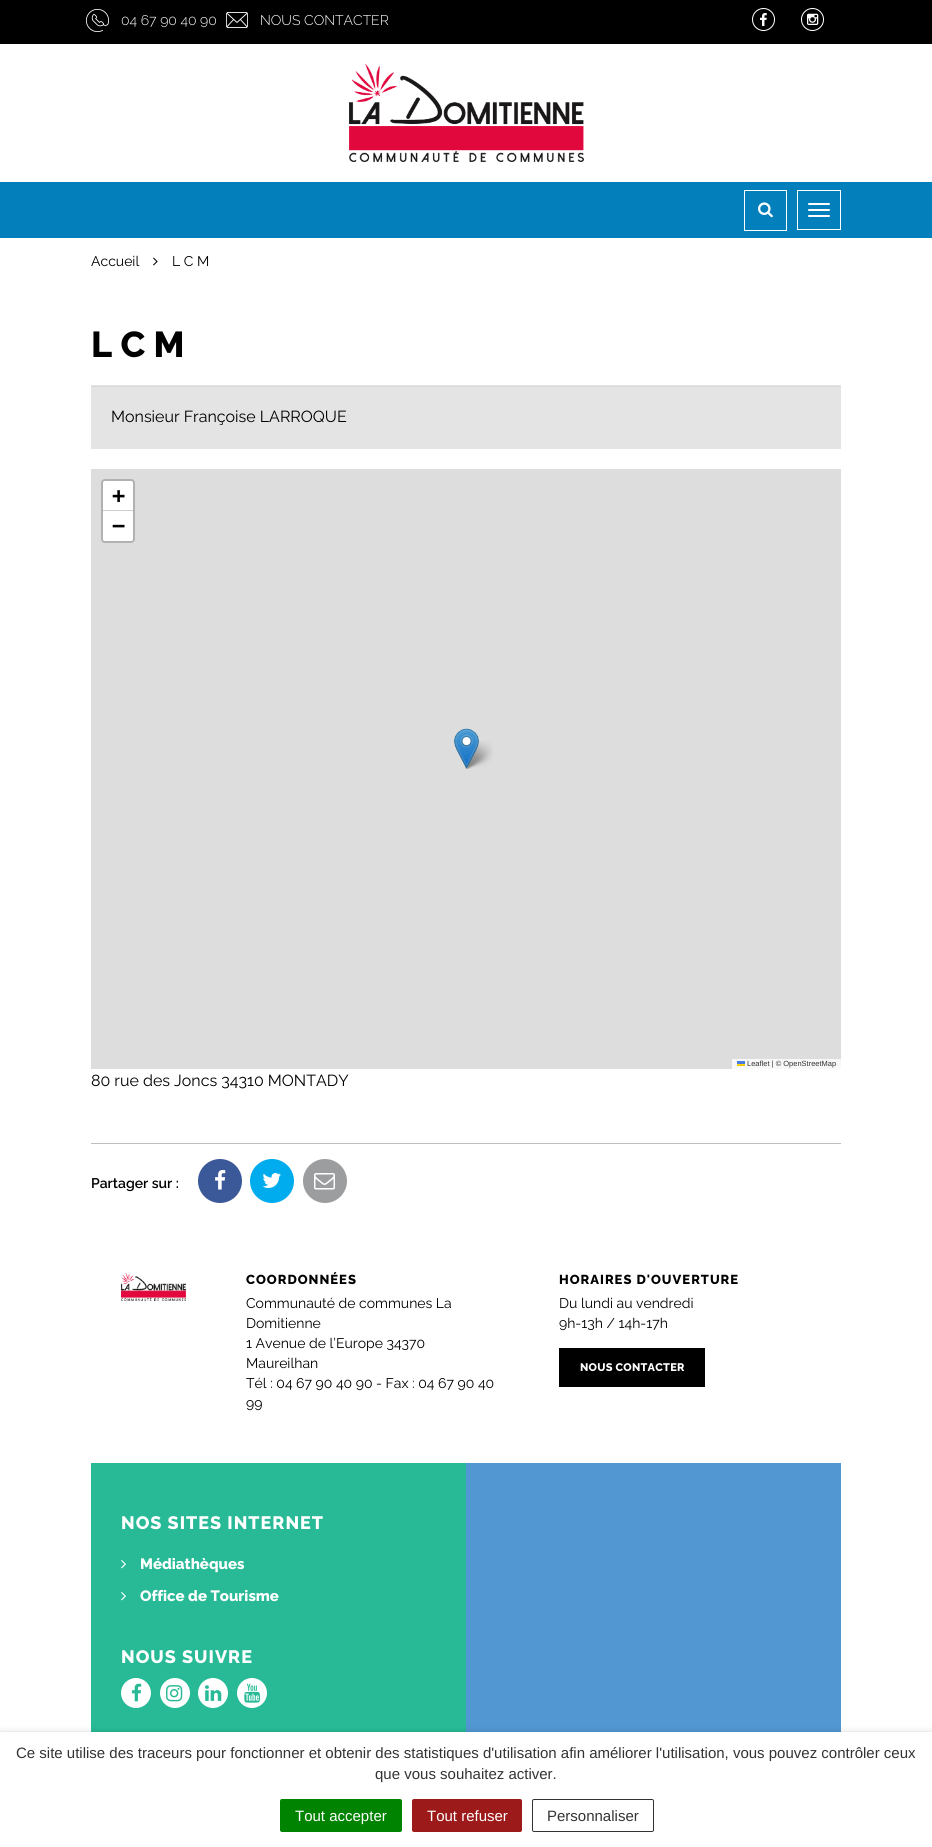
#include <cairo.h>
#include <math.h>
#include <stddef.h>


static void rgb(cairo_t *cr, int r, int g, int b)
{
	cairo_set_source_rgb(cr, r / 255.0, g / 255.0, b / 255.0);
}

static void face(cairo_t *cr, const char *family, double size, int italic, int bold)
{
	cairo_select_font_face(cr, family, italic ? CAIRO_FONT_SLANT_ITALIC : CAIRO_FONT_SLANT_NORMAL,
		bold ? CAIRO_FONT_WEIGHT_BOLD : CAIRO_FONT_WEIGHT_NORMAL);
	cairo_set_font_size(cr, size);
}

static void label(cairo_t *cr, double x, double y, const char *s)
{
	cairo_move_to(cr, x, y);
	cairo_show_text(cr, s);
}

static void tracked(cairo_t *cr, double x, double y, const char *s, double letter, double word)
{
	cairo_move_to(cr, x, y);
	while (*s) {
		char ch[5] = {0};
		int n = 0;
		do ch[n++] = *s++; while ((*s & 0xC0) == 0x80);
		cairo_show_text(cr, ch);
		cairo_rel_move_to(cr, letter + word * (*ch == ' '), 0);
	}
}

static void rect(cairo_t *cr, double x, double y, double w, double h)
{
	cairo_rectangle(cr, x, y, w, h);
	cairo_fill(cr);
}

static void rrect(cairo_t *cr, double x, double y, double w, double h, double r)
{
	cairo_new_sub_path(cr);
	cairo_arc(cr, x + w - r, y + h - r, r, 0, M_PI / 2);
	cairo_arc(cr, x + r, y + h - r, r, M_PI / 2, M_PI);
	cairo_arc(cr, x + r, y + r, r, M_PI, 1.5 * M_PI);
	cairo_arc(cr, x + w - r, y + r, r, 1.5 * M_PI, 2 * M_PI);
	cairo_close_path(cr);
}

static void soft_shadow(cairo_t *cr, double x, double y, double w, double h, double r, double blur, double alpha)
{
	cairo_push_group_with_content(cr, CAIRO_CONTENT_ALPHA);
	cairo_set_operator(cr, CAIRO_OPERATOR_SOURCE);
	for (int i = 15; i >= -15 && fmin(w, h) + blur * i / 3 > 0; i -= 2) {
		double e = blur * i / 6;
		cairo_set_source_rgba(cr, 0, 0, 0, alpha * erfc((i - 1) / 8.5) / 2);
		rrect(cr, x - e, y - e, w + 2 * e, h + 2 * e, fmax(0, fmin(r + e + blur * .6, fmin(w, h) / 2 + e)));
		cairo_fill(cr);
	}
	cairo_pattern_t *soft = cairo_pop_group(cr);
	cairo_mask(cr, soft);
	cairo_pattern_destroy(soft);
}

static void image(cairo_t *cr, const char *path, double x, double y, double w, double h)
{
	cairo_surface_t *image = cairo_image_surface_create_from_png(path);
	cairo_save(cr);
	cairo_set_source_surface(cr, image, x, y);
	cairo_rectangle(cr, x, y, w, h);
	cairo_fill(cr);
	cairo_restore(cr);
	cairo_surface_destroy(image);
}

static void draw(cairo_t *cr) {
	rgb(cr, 255, 255, 255);
	cairo_paint(cr);
	rgb(cr, 0, 0, 0);
	rect(cr, 0, 0, 932, 44);
	image(cr, "image0.png", 86, 9, 23, 23);
	face(cr, "Raleway Light", 14, 0, 0);
	rgb(cr, 255, 255, 255);
	label(cr, 121, 25, "04 67 90 40 90");
	image(cr, "image1.png", 226, 12, 22, 16);
	label(cr, 260, 25, "NOUS CONTACTER");
	image(cr, "image2.png", 752, 8, 23, 23);
	image(cr, "image3.png", 801, 8, 23, 23);
	image(cr, "image4.png", 349, 64, 235, 98);
	rgb(cr, 3, 127, 188);
	rect(cr, 0, 182, 932, 56);
	cairo_rectangle(cr, 744.5, 190.5, 42, 40);
	rgb(cr, 255, 255, 255);
	cairo_set_line_width(cr, 1);
	cairo_stroke(cr);
	image(cr, "image5.png", 758, 202, 15, 16);
	cairo_rectangle(cr, 797.5, 190.5, 43, 39);
	cairo_stroke(cr);
	rrect(cr, 808, 203, 22, 2, 1);
	cairo_fill(cr);
	rrect(cr, 808, 209, 22, 2, 1);
	cairo_fill(cr);
	rrect(cr, 808, 215, 22, 2, 1);
	cairo_fill(cr);
	face(cr, "Raleway", 14, 0, 0);
	rgb(cr, 0, 0, 0);
	label(cr, 91, 266, "Accueil");
	image(cr, "image6.png", 153, 257, 5, 9);
	label(cr, 172, 266, "L C M");
	face(cr, "Raleway ExtraBold", 36, 0, 0);
	label(cr, 91, 357, "L C M");
	rgb(cr, 228, 228, 228);
	rect(cr, 91, 385, 750, 64);
	rgb(cr, 217, 217, 217);
	rect(cr, 92, 386, 748, 1);
	face(cr, "Raleway", 16, 0, 0);
	rgb(cr, 0, 0, 0);
	label(cr, 111, 422, "Monsieur Françoise LARROQUE");
	rgb(cr, 221, 221, 221);
	rect(cr, 91, 469, 750, 600);
	rrect(cr, 102, 480, 32, 62, 3);
	rgb(cr, 177, 177, 177);
	cairo_set_line_width(cr, 2);
	cairo_stroke(cr);
	rgb(cr, 255, 255, 255);
	cairo_new_path(cr);
	cairo_move_to(cr, 105, 481);
	cairo_line_to(cr, 131, 481);
	cairo_curve_to(cr, 132, 481, 133, 482, 133, 483);
	cairo_line_to(cr, 133, 511);
	cairo_line_to(cr, 103, 511);
	cairo_line_to(cr, 103, 483);
	cairo_curve_to(cr, 103, 482, 104, 481, 105, 481);
	cairo_close_path(cr);
	cairo_fill(cr);
	rgb(cr, 204, 204, 204);
	rect(cr, 103, 510, 30, 1);
	face(cr, "DejaVu Sans Mono", 22, 0, 1);
	rgb(cr, 0, 0, 0);
	label(cr, 112, 503, "+");
	rgb(cr, 255, 255, 255);
	cairo_new_path(cr);
	cairo_move_to(cr, 103, 511);
	cairo_line_to(cr, 133, 511);
	cairo_line_to(cr, 133, 539);
	cairo_curve_to(cr, 133, 540, 132, 541, 131, 541);
	cairo_line_to(cr, 105, 541);
	cairo_curve_to(cr, 104, 541, 103, 540, 103, 539);
	cairo_close_path(cr);
	cairo_fill(cr);
	rgb(cr, 0, 0, 0);
	label(cr, 112, 533, "−");
	rgb(cr, 248, 248, 248);
	rect(cr, 732, 1059, 109, 10);
	image(cr, "image7.png", 737, 1061, 8, 5);
	face(cr, "Liberation Sans", 7.5, 0, 0);
	rgb(cr, 51, 51, 51);
	label(cr, 747, 1066, "Leaflet | © OpenStreetMap");
	image(cr, "image9.png", 464, 741, 29, 28);
	image(cr, "image8.png", 454, 728, 25, 41);
	face(cr, "Raleway", 16, 0, 0);
	rgb(cr, 0, 0, 0);
	label(cr, 91, 1086, "80 rue des Joncs 34310 MONTADY");
	rgb(cr, 190, 190, 190);
	rect(cr, 91, 1143, 750, 1);
	face(cr, "Raleway SemiBold", 14, 0, 0);
	rgb(cr, 0, 0, 0);
	label(cr, 91, 1188, "Partager sur :");
	rgb(cr, 59, 89, 152);
	cairo_new_path(cr);
	cairo_arc(cr, 220, 1181, 22, 0, 2 * M_PI);
	cairo_fill(cr);
	image(cr, "image10.png", 215, 1170, 11, 20);
	rgb(cr, 0, 172, 238);
	cairo_arc(cr, 272, 1181, 22, 0, 2 * M_PI);
	cairo_fill(cr);
	image(cr, "image11.png", 262, 1173, 19, 15);
	rgb(cr, 156, 157, 158);
	cairo_arc(cr, 325, 1181, 22, 0, 2 * M_PI);
	cairo_fill(cr);
	image(cr, "image12.png", 314, 1173, 21, 17);
	image(cr, "image13.png", 121, 1273, 65, 28);
	face(cr, "Raleway ExtraBold", 13, 0, 0);
	rgb(cr, 0, 0, 0);
	tracked(cr, 246, 1284, "COORDONNÉES", 1, 0);
	face(cr, "Raleway", 14, 0, 0);
	label(cr, 246, 1308, "Communauté de communes La");
	label(cr, 246, 1328, "Domitienne");
	label(cr, 246, 1348, "1 Avenue de l’Europe 34370");
	label(cr, 246, 1368, "Maureilhan");
	label(cr, 246, 1388, "Tél : 04 67 90 40 90 - Fax : 04 67 90 40");
	label(cr, 246, 1408, "99");
	face(cr, "Raleway ExtraBold", 13, 0, 0);
	tracked(cr, 559, 1284, "HORAIRES D'OUVERTURE", 1, 0);
	face(cr, "Raleway", 14, 0, 0);
	label(cr, 559, 1308, "Du lundi au vendredi");
	label(cr, 559, 1328, "9h-13h / 14h-17h");
	rect(cr, 559, 1348, 146, 39);
	face(cr, "Raleway ExtraBold", 11, 0, 0);
	rgb(cr, 255, 255, 255);
	tracked(cr, 580, 1371, "NOUS CONTACTER", 0.25, 0);
	rgb(cr, 40, 186, 150);
	rect(cr, 91, 1463, 375, 269);
	face(cr, "Raleway ExtraBold", 18, 0, 0);
	rgb(cr, 255, 255, 255);
	tracked(cr, 121, 1529, "NOS SITES INTERNET", 1, 0);
	image(cr, "image14.png", 121, 1560, 5, 9);
	face(cr, "Raleway ExtraBold", 15, 0, 0);
	label(cr, 140, 1569, "Médiathèques");
	image(cr, "image14.png", 121, 1592, 5, 9);
	label(cr, 140, 1601, "Office de Tourisme");
	face(cr, "Raleway ExtraBold", 18, 0, 0);
	tracked(cr, 121, 1663, "NOUS SUIVRE", 1, 0);
	cairo_new_path(cr);
	cairo_arc(cr, 136, 1693, 15, 0, 2 * M_PI);
	cairo_fill(cr);
	image(cr, "image15.png", 132, 1683, 10, 19);
	cairo_arc(cr, 175, 1693, 15, 0, 2 * M_PI);
	cairo_fill(cr);
	image(cr, "image16.png", 166, 1685, 17, 17);
	cairo_arc(cr, 213, 1693, 15, 0, 2 * M_PI);
	cairo_fill(cr);
	image(cr, "image17.png", 205, 1685, 17, 16);
	cairo_arc(cr, 252, 1693, 15, 0, 2 * M_PI);
	cairo_fill(cr);
	image(cr, "image18.png", 244, 1683, 16, 20);
	rgb(cr, 82, 151, 210);
	rect(cr, 466, 1463, 375, 269);
	rgb(cr, 0, 0, 0);
	soft_shadow(cr, 0, 1737, 932, 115, 0, 5, 0.5);
	rgb(cr, 255, 255, 255);
	rect(cr, 0, 1732, 932, 115);
	face(cr, "Liberation Sans", 15, 0, 0);
	rgb(cr, 51, 51, 51);
	label(cr, 16, 1758, "Ce site utilise des traceurs pour fonctionner et obtenir des statistiques d'utilisation afin améliorer l'utilisation, vous pouvez contrôler ceux");
	label(cr, 375, 1779, "que vous souhaitez activer.");
	rgb(cr, 0, 131, 0);
	rrect(cr, 280, 1799, 122, 33, 2);
	cairo_fill(cr);
	rgb(cr, 255, 255, 255);
	label(cr, 295, 1821, "Tout accepter");
	rgb(cr, 156, 26, 26);
	rrect(cr, 412, 1799, 110, 33, 2);
	cairo_fill(cr);
	rgb(cr, 255, 255, 255);
	label(cr, 427, 1821, "Tout refuser");
	rrect(cr, 532.5, 1799.5, 121, 32, 1.5);
	rgb(cr, 51, 51, 51);
	cairo_set_line_width(cr, 1);
	cairo_stroke(cr);
	label(cr, 547, 1821, "Personnaliser");
}

int main(void) {
	cairo_surface_t *surface = cairo_image_surface_create(CAIRO_FORMAT_RGB24, 932, 1847);
	cairo_t *cr = cairo_create(surface);
	cairo_font_options_t *options = cairo_font_options_create();
	cairo_font_options_set_hint_metrics(options, CAIRO_HINT_METRICS_OFF);
	cairo_font_options_set_hint_style(options, CAIRO_HINT_STYLE_NONE);
	cairo_set_font_options(cr, options);
	cairo_set_miter_limit(cr, 4);
	draw(cr);
	cairo_surface_write_to_png(surface, "render.png");
	cairo_font_options_destroy(options);
	cairo_destroy(cr);
	cairo_surface_destroy(surface);
	return 0;
}
